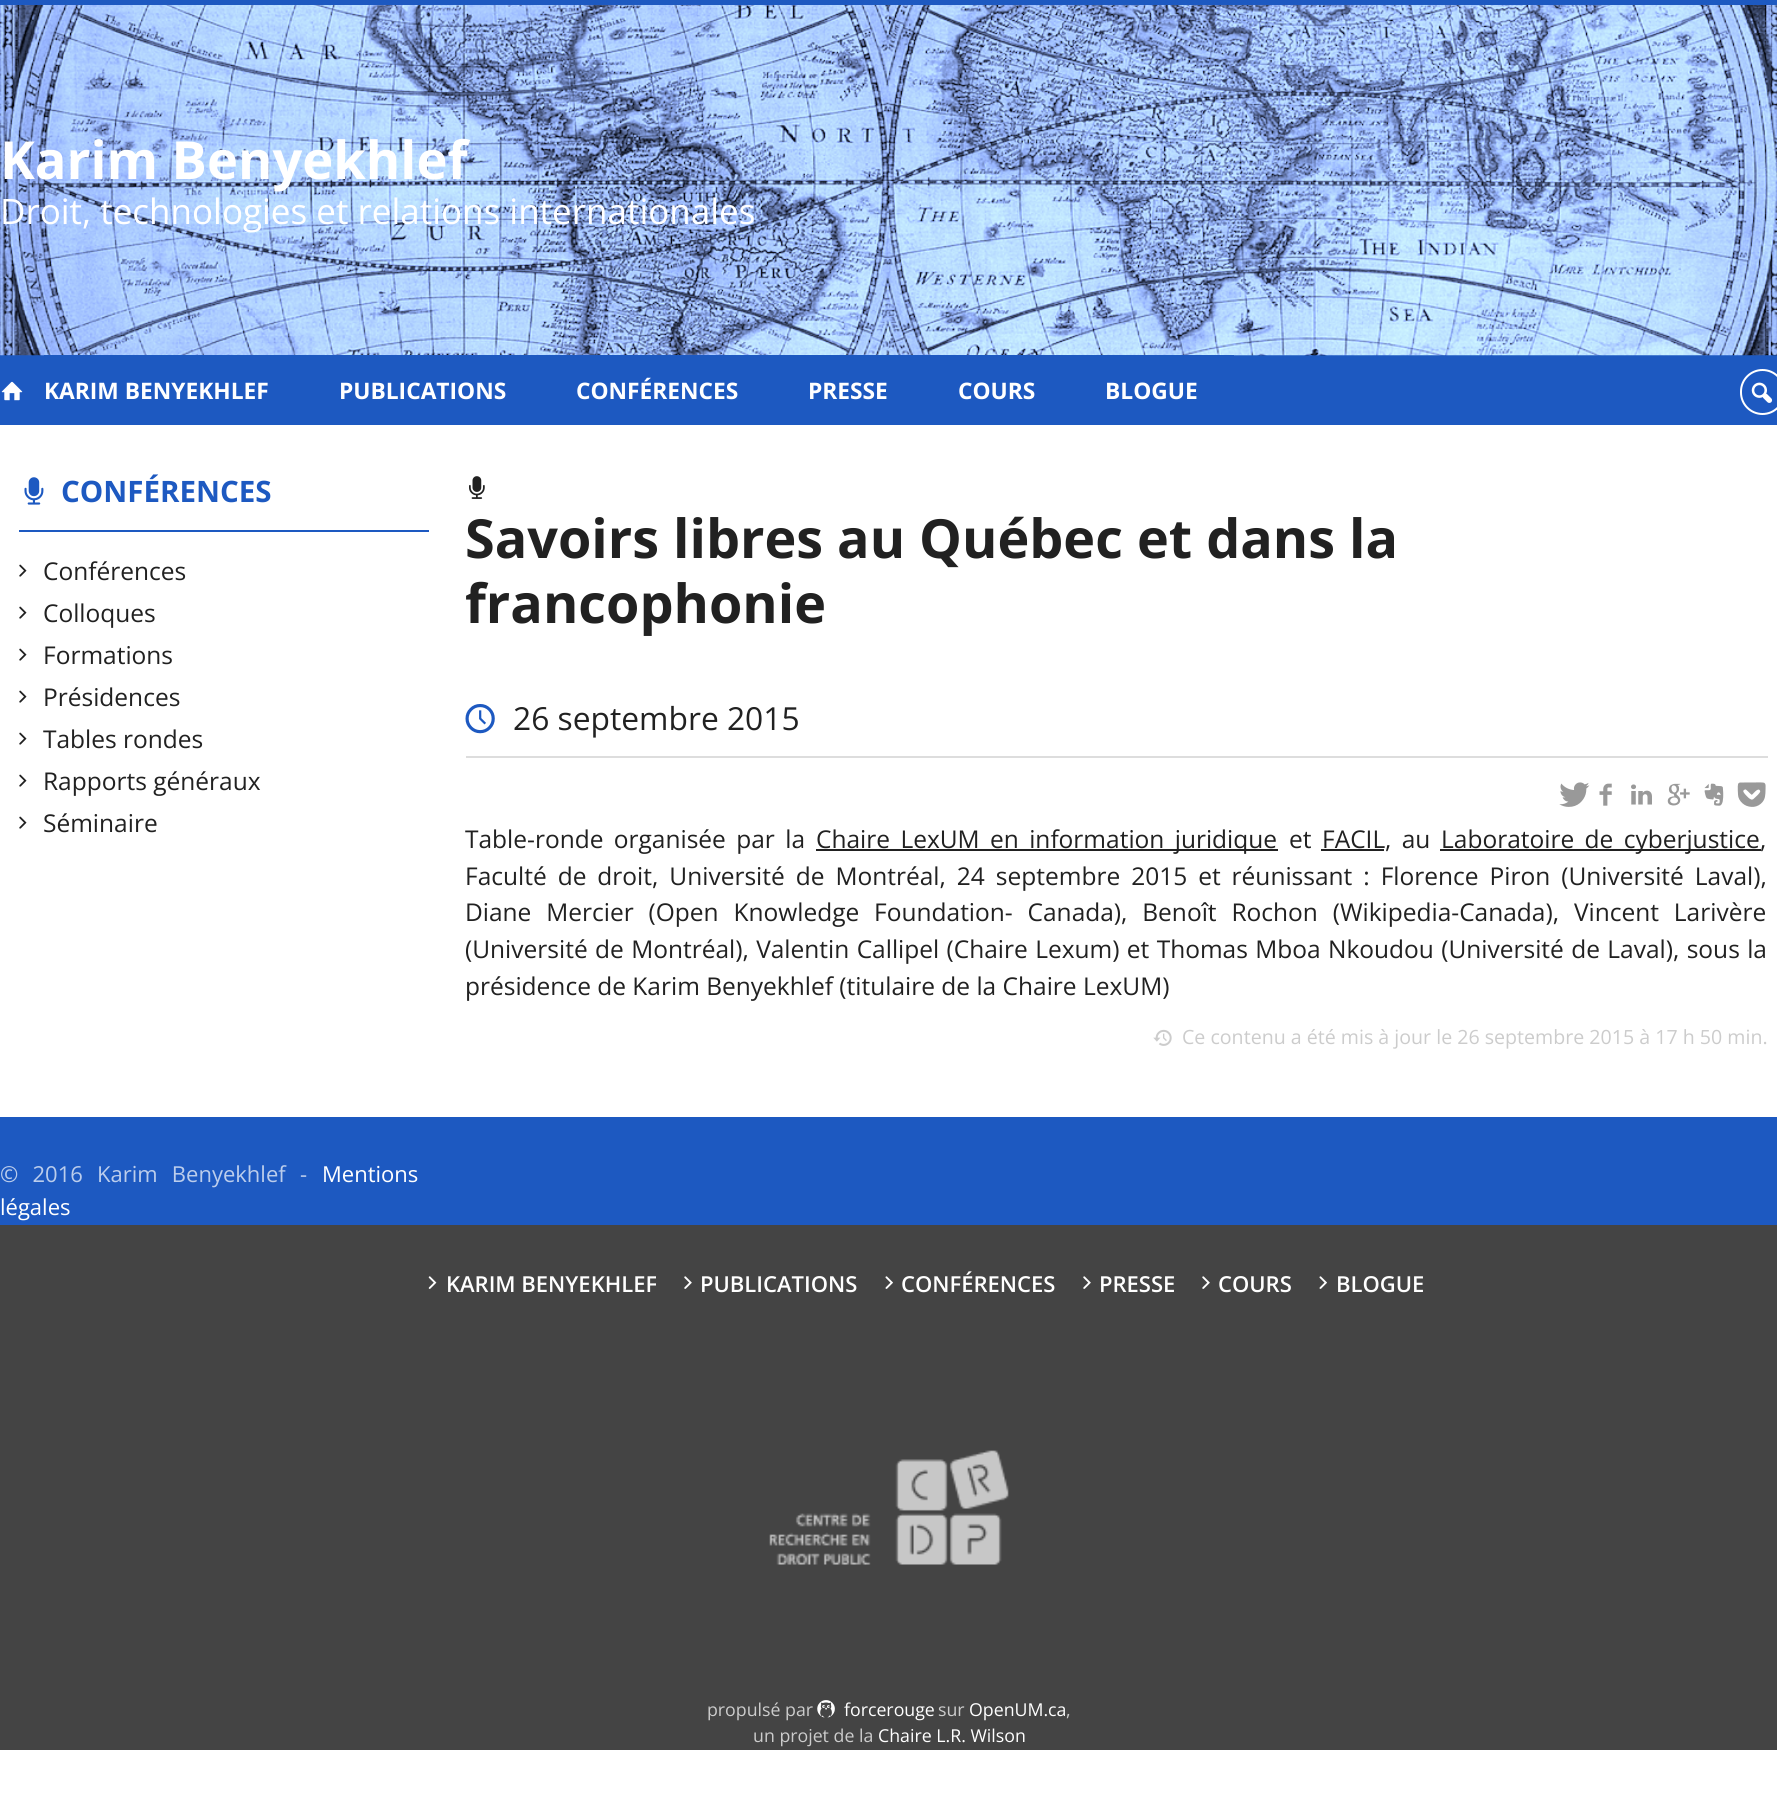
#include <cairo.h>
#include <math.h>
#include <stddef.h>


static void rgb(cairo_t *cr, int r, int g, int b)
{
	cairo_set_source_rgb(cr, r / 255.0, g / 255.0, b / 255.0);
}

static void face(cairo_t *cr, const char *family, double size, int italic, int bold)
{
	cairo_select_font_face(cr, family, italic ? CAIRO_FONT_SLANT_ITALIC : CAIRO_FONT_SLANT_NORMAL,
		bold ? CAIRO_FONT_WEIGHT_BOLD : CAIRO_FONT_WEIGHT_NORMAL);
	cairo_set_font_size(cr, size);
}

static void label(cairo_t *cr, double x, double y, const char *s)
{
	cairo_move_to(cr, x, y);
	cairo_show_text(cr, s);
}

static void tracked(cairo_t *cr, double x, double y, const char *s, double letter, double word)
{
	cairo_move_to(cr, x, y);
	while (*s) {
		char ch[5] = {0};
		int n = 0;
		do ch[n++] = *s++; while ((*s & 0xC0) == 0x80);
		cairo_show_text(cr, ch);
		cairo_rel_move_to(cr, letter + word * (*ch == ' '), 0);
	}
}

static void rect(cairo_t *cr, double x, double y, double w, double h)
{
	cairo_rectangle(cr, x, y, w, h);
	cairo_fill(cr);
}

static void rrect(cairo_t *cr, double x, double y, double w, double h, double r)
{
	cairo_new_sub_path(cr);
	cairo_arc(cr, x + w - r, y + h - r, r, 0, M_PI / 2);
	cairo_arc(cr, x + r, y + h - r, r, M_PI / 2, M_PI);
	cairo_arc(cr, x + r, y + r, r, M_PI, 1.5 * M_PI);
	cairo_arc(cr, x + w - r, y + r, r, 1.5 * M_PI, 2 * M_PI);
	cairo_close_path(cr);
}

static void image(cairo_t *cr, const char *path, double x, double y, double w, double h)
{
	cairo_surface_t *image = cairo_image_surface_create_from_png(path);
	cairo_save(cr);
	cairo_set_source_surface(cr, image, x, y);
	cairo_rectangle(cr, x, y, w, h);
	cairo_fill(cr);
	cairo_restore(cr);
	cairo_surface_destroy(image);
}

static void draw(cairo_t *cr) {
	rgb(cr, 255, 255, 255);
	cairo_paint(cr);
	rgb(cr, 29, 89, 193);
	rect(cr, 0, 355, 1777, 70);
	image(cr, "image0.png", 0, 5, 1777, 351);
	rect(cr, 0, 0, 1777, 5);
	face(cr, "Open Sans", 52.5, 0, 1);
	rgb(cr, 255, 255, 255);
	label(cr, 0, 179, "Karim Benyekhlef");
	face(cr, "Open Sans", 35, 0, 0);
	label(cr, 0, 224, "Droit, technologies et relations internationales");
	image(cr, "image1.png", 1, 381, 22, 20);
	rgb(cr, 29, 89, 193);
	rect(cr, 44, 355, 1190, 1);
	face(cr, "Open Sans", 22.75, 0, 1);
	rgb(cr, 255, 255, 255);
	label(cr, 44, 399, "KARIM BENYEKHLEF");
	label(cr, 339, 399, "PUBLICATIONS");
	label(cr, 576, 399, "CONFÉRENCES");
	label(cr, 808, 399, "PRESSE");
	label(cr, 958, 399, "COURS");
	label(cr, 1105, 399, "BLOGUE");
	rrect(cr, 1741, 370, 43, 44, 21.5);
	cairo_stroke(cr);
	image(cr, "image2.png", 1751, 382, 22, 21);
	rgb(cr, 29, 89, 193);
	rect(cr, 19, 530, 410, 2);
	image(cr, "image3.png", 24, 477, 20, 28);
	face(cr, "Open Sans", 29.5, 0, 1);
	label(cr, 61, 502, "CONFÉRENCES");
	image(cr, "image4.png", 19, 564, 8, 13);
	face(cr, "Open Sans", 24.5, 0, 0);
	rgb(cr, 33, 33, 33);
	label(cr, 43, 580, "Conférences");
	image(cr, "image4.png", 19, 606, 8, 13);
	label(cr, 43, 622, "Colloques");
	image(cr, "image4.png", 19, 648, 8, 13);
	label(cr, 43, 664, "Formations");
	image(cr, "image4.png", 19, 690, 8, 13);
	label(cr, 43, 706, "Présidences");
	image(cr, "image4.png", 19, 732, 8, 13);
	label(cr, 43, 748, "Tables rondes");
	image(cr, "image4.png", 19, 774, 8, 13);
	label(cr, 43, 790, "Rapports généraux");
	image(cr, "image4.png", 19, 816, 8, 13);
	label(cr, 43, 832, "Séminaire");
	image(cr, "image5.png", 469, 476, 16, 23);
	face(cr, "Open Sans", 53.9, 0, 1);
	label(cr, 465, 558, "Savoirs libres au Québec et dans la");
	label(cr, 465, 623, "francophonie");
	image(cr, "image6.png", 465, 704, 30, 30);
	face(cr, "Open Sans", 31.75, 0, 0);
	label(cr, 513, 730, "26 septembre 2015");
	rgb(cr, 221, 221, 221);
	rect(cr, 466, 756, 1302, 2);
	image(cr, "image7.png", 1559, 782, 31, 25);
	image(cr, "image8.png", 1599, 783, 13, 23);
	image(cr, "image9.png", 1631, 784, 21, 21);
	image(cr, "image10.png", 1667, 783, 23, 23);
	image(cr, "image11.png", 1704, 783, 20, 23);
	image(cr, "image12.png", 1737, 782, 29, 25);
	face(cr, "Open Sans", 24.5, 0, 0);
	rgb(cr, 33, 33, 33);
	tracked(cr, 465, 848, "Table-ronde organisée par la", 0, 4);
	rect(cr, 816, 849, 462, 2);
	tracked(cr, 816, 848, "Chaire LexUM en information juridique", 0, 4);
	label(cr, 1289, 848, "et");
	label(cr, 1322, 848, "FACIL");
	rect(cr, 1321, 849, 63, 2);
	tracked(cr, 1385, 848, ", au", 0, 4);
	rect(cr, 1440, 849, 321, 2);
	tracked(cr, 1441, 848, "Laboratoire de cyberjustice", 0, 4);
	label(cr, 1760, 848, ",");
	tracked(cr, 465, 885, "Faculté de droit, Université de Montréal, 24 septembre 2015 et réunissant : Florence Piron (Université Laval),", 0, 4.6);
	tracked(cr, 465, 921, "Diane Mercier (Open Knowledge Foundation- Canada), Benoît Rochon (Wikipedia-Canada), Vincent Larivère", 0, 8.5);
	tracked(cr, 465, 958, "(Université de Montréal), Valentin Callipel (Chaire Lexum) et Thomas Mboa Nkoudou (Université de Laval), sous la", 0, 1);
	label(cr, 465, 995, "présidence de Karim Benyekhlef (titulaire de la Chaire LexUM)");
	image(cr, "image13.png", 1153, 1029, 19, 17);
	face(cr, "Open Sans", 19.6, 0, 0);
	rgb(cr, 204, 204, 204);
	label(cr, 1182, 1044, "Ce contenu a été mis à jour le 26 septembre 2015 à 17 h 50 min.");
	rgb(cr, 68, 68, 68);
	rect(cr, 0, 1225, 1777, 525);
	rgb(cr, 29, 89, 193);
	rect(cr, 0, 1117, 1777, 108);
	face(cr, "Open Sans", 22, 0, 0);
	rgb(cr, 187, 205, 236);
	tracked(cr, 0, 1182, "© 2016 Karim Benyekhlef -", 0, 8.5);
	rgb(cr, 255, 255, 255);
	label(cr, 322, 1182, "Mentions");
	label(cr, 0, 1215, "légales");
	image(cr, "image14.png", 428, 1276, 9, 13);
	face(cr, "Open Sans SemiBold", 22, 0, 0);
	label(cr, 446, 1292, "KARIM BENYEKHLEF");
	image(cr, "image15.png", 684, 1276, 8, 13);
	label(cr, 700, 1292, "PUBLICATIONS");
	image(cr, "image16.png", 885, 1276, 8, 13);
	label(cr, 901, 1292, "CONFÉRENCES");
	image(cr, "image15.png", 1083, 1276, 8, 13);
	label(cr, 1099, 1292, "PRESSE");
	image(cr, "image15.png", 1202, 1276, 8, 13);
	label(cr, 1218, 1292, "COURS");
	image(cr, "image16.png", 1319, 1276, 8, 13);
	label(cr, 1336, 1292, "BLOGUE");
	image(cr, "image17.png", 769, 1450, 240, 115);
	face(cr, "Open Sans", 17.75, 0, 0);
	rgb(cr, 204, 204, 204);
	label(cr, 707, 1716, "propulsé par");
	image(cr, "image18.png", 817, 1700, 18, 18);
	rgb(cr, 255, 255, 255);
	label(cr, 844, 1716, "forcerouge");
	rgb(cr, 204, 204, 204);
	label(cr, 938, 1716, "sur");
	rgb(cr, 255, 255, 255);
	label(cr, 969, 1716, "OpenUM.ca");
	rgb(cr, 204, 204, 204);
	label(cr, 1066, 1716, ",");
	label(cr, 753, 1742, "un projet de la");
	rgb(cr, 255, 255, 255);
	label(cr, 878, 1742, "Chaire L.R. Wilson");
}

int main(void) {
	cairo_surface_t *surface = cairo_image_surface_create(CAIRO_FORMAT_RGB24, 1777, 1812);
	cairo_t *cr = cairo_create(surface);
	cairo_font_options_t *options = cairo_font_options_create();
	cairo_font_options_set_hint_metrics(options, CAIRO_HINT_METRICS_OFF);
	cairo_font_options_set_hint_style(options, CAIRO_HINT_STYLE_NONE);
	cairo_set_font_options(cr, options);
	cairo_set_miter_limit(cr, 4);
	draw(cr);
	cairo_surface_write_to_png(surface, "render.png");
	cairo_font_options_destroy(options);
	cairo_destroy(cr);
	cairo_surface_destroy(surface);
	return 0;
}
